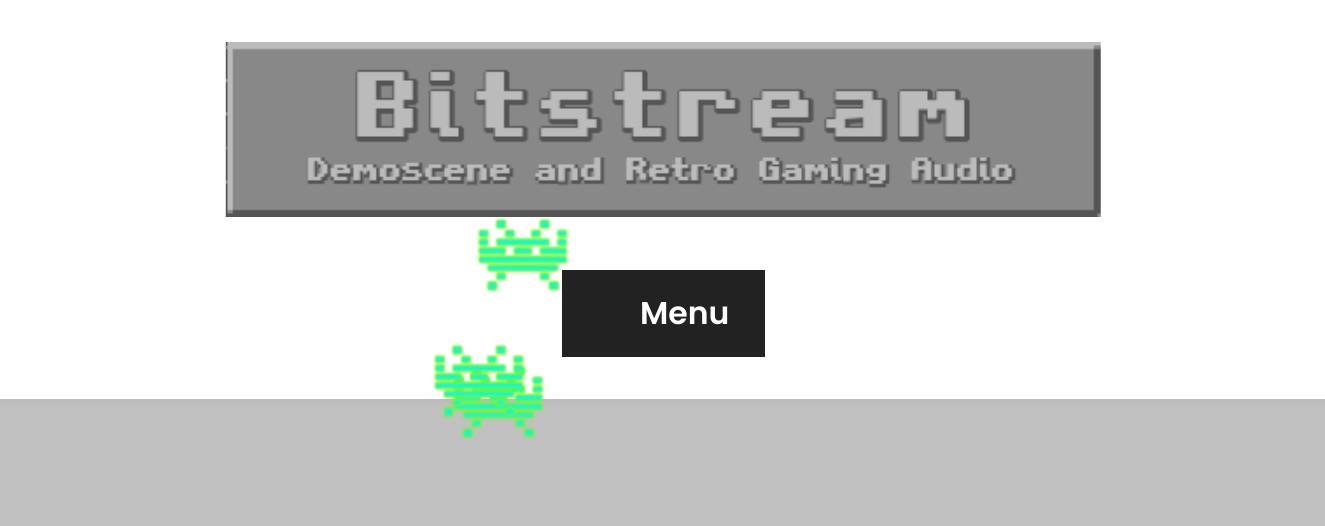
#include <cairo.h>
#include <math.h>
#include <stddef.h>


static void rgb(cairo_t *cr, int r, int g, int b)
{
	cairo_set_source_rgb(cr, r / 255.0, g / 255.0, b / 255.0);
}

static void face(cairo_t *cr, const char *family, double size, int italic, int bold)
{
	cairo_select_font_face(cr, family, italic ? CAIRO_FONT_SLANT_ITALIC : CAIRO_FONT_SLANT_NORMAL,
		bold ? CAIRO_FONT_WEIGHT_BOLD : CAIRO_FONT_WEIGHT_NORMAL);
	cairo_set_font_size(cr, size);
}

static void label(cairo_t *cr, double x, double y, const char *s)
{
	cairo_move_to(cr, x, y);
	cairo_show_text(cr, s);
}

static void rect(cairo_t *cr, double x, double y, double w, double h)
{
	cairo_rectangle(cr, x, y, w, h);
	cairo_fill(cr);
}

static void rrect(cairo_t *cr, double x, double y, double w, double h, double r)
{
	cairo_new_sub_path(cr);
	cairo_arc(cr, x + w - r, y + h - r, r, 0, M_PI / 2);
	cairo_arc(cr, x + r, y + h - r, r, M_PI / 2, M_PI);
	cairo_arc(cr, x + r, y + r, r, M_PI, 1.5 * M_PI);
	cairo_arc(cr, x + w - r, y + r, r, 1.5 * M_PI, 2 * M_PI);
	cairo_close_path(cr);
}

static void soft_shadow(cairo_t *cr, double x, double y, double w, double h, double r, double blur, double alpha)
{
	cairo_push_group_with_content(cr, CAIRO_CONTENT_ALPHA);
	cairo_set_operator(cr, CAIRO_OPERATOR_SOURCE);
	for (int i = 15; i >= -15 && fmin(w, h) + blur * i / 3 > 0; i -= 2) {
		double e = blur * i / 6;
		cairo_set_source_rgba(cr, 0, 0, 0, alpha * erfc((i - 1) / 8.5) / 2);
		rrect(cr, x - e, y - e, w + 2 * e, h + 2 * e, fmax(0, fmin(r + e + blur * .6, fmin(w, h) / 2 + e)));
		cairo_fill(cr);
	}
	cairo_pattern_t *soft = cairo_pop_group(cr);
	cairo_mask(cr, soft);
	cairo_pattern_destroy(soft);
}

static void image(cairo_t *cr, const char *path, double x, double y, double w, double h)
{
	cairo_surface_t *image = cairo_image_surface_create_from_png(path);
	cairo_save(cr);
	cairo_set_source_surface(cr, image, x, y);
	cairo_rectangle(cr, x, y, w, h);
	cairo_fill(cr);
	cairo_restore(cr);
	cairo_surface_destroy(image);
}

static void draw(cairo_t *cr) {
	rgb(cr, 193, 193, 193);
	cairo_paint(cr);
	rgb(cr, 0, 0, 0);
	soft_shadow(cr, 0, 0, 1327, 399, 0, 7, 0.07);
	rgb(cr, 255, 255, 255);
	rect(cr, 0, 0, 1325, 399);
	rgb(cr, 34, 34, 34);
	rect(cr, 562, 270, 203, 87);
	image(cr, "image0.png", 476, 217, 94, 76);
	image(cr, "image1.png", 225, 42, 876, 175);
	face(cr, "Poppins SemiBold", 31.5, 0, 0);
	rgb(cr, 255, 255, 255);
	label(cr, 640, 324, "Menu");
	image(cr, "image3.png", 452, 364, 93, 76);
	image(cr, "image2.png", 432, 343, 94, 76);
}

int main(void) {
	cairo_surface_t *surface = cairo_image_surface_create(CAIRO_FORMAT_RGB24, 1325, 526);
	cairo_t *cr = cairo_create(surface);
	cairo_font_options_t *options = cairo_font_options_create();
	cairo_font_options_set_hint_metrics(options, CAIRO_HINT_METRICS_OFF);
	cairo_font_options_set_hint_style(options, CAIRO_HINT_STYLE_NONE);
	cairo_set_font_options(cr, options);
	cairo_set_miter_limit(cr, 4);
	draw(cr);
	cairo_surface_write_to_png(surface, "render.png");
	cairo_font_options_destroy(options);
	cairo_destroy(cr);
	cairo_surface_destroy(surface);
	return 0;
}
